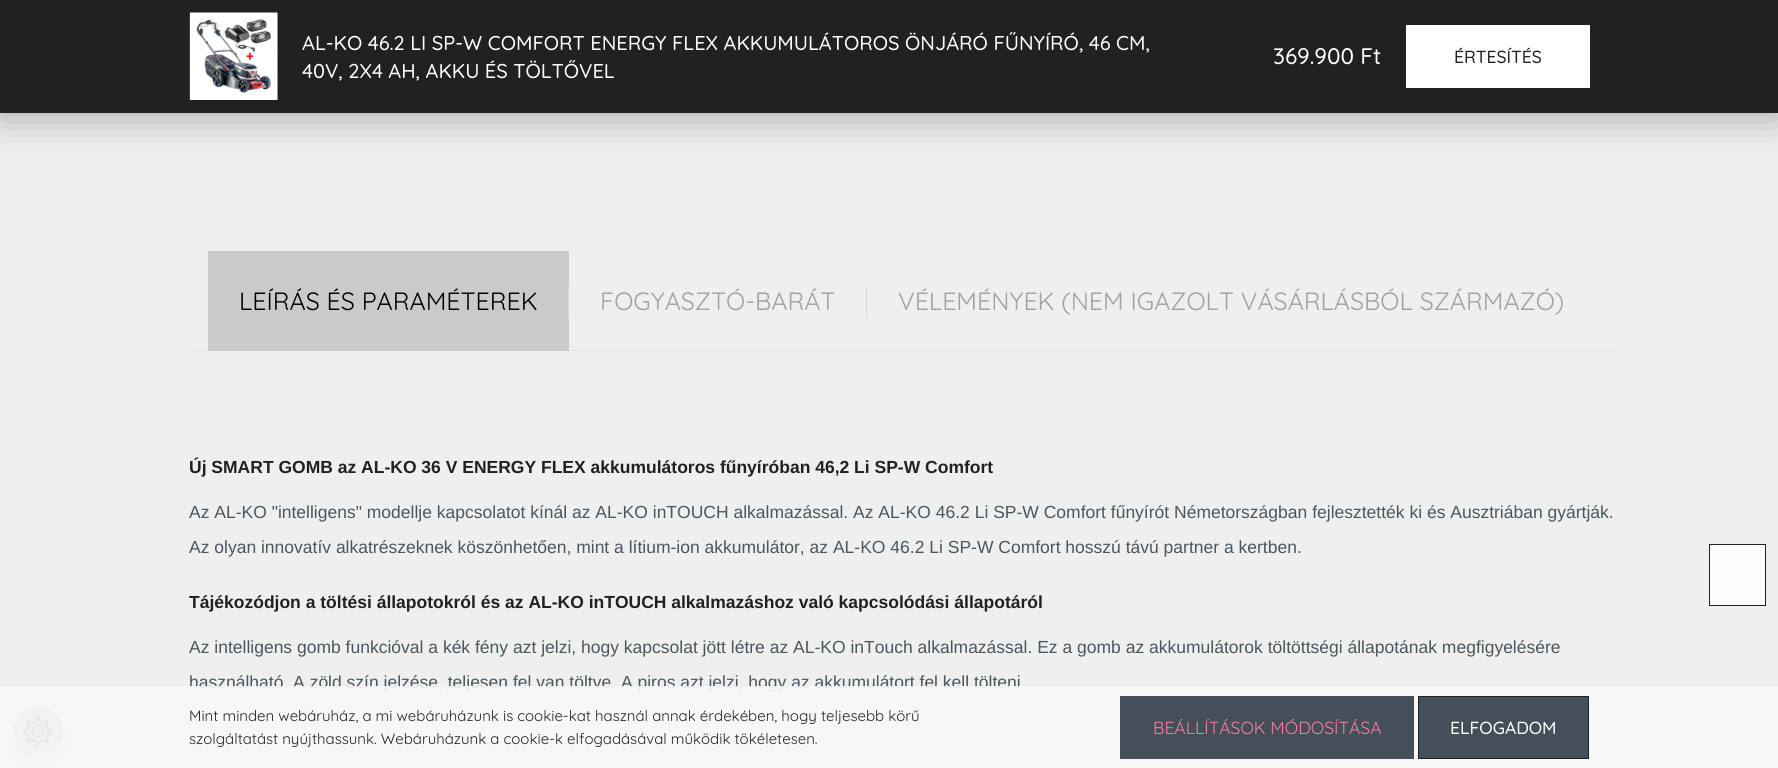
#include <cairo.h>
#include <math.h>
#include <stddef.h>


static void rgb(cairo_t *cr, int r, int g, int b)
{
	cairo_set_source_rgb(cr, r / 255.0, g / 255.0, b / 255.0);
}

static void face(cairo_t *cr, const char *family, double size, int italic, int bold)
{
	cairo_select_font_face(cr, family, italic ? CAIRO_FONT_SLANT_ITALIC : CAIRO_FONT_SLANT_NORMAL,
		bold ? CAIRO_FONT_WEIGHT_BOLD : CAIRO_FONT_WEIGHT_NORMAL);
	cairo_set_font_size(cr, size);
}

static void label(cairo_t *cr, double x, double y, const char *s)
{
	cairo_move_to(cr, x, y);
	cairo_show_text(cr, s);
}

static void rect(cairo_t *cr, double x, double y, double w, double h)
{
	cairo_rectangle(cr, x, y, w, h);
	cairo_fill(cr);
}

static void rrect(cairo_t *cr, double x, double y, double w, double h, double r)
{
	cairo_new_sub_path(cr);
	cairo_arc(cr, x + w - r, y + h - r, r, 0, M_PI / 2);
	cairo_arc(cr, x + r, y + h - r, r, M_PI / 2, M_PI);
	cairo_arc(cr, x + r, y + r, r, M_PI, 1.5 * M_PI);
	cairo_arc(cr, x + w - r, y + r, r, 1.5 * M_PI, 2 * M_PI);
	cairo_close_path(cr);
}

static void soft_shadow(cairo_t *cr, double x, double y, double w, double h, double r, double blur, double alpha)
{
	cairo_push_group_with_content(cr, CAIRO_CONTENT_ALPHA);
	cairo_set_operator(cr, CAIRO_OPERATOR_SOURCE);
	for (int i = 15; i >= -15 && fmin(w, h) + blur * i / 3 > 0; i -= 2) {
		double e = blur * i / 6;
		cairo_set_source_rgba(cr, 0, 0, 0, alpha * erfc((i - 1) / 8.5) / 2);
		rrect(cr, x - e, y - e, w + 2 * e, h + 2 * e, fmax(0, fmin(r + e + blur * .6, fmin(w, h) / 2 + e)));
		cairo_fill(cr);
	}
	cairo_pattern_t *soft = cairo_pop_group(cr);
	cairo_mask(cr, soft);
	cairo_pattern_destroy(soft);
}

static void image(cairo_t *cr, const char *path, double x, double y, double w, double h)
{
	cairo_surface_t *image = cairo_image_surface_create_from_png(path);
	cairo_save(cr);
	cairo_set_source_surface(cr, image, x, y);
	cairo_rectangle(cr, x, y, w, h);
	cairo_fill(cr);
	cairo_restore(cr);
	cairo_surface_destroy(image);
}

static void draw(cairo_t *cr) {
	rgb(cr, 239, 239, 239);
	cairo_paint(cr);
	rgb(cr, 0, 0, 0);
	soft_shadow(cr, 0, 0, 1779, 113, 0, 21, 0.35);
	rgb(cr, 33, 33, 33);
	rect(cr, 0, 0, 1778, 113);
	image(cr, "image0.png", 189, 12, 89, 88);
	face(cr, "Quicksand Medium", 20, 0, 0);
	rgb(cr, 255, 255, 255);
	label(cr, 302, 50, "AL-KO 46.2 LI SP-W COMFORT ENERGY FLEX AKKUMULÁTOROS ÖNJÁRÓ FŰNYÍRÓ, 46 CM,");
	label(cr, 302, 78, "40V, 2X4 AH, AKKU ÉS TÖLTŐVEL");
	face(cr, "Quicksand Medium", 22.5, 0, 0);
	label(cr, 1273, 64, "369.900 Ft");
	rect(cr, 1406, 25, 184, 63);
	face(cr, "Quicksand Medium", 17.5, 0, 0);
	rgb(cr, 33, 33, 33);
	label(cr, 1454, 63, "ÉRTESÍTÉS");
	rgb(cr, 222, 226, 230);
	rect(cr, 190, 350, 1425, 1);
	rgb(cr, 202, 202, 201);
	rect(cr, 208, 251, 361, 100);
	face(cr, "Quicksand", 25, 0, 0);
	rgb(cr, 0, 0, 0);
	label(cr, 239, 310, "LEÍRÁS ÉS PARAMÉTEREK");
	rgb(cr, 216, 216, 216);
	rect(cr, 568, 286, 1, 32);
	rgb(cr, 161, 161, 161);
	label(cr, 600, 310, "FOGYASZTÓ-BARÁT");
	rgb(cr, 216, 216, 216);
	rect(cr, 866, 286, 1, 32);
	rgb(cr, 161, 161, 161);
	label(cr, 898, 310, "VÉLEMÉNYEK (NEM IGAZOLT VÁSÁRLÁSBÓL SZÁRMAZÓ)");
	face(cr, "Liberation Sans", 17.5, 0, 1);
	rgb(cr, 33, 33, 33);
	label(cr, 189, 473, "Új SMART GOMB az AL-KO 36 V ENERGY FLEX akkumulátoros fűnyíróban 46,2 Li SP-W Comfort");
	face(cr, "Liberation Sans", 17.5, 0, 0);
	rgb(cr, 75, 86, 93);
	label(cr, 189, 518, "Az AL-KO \"intelligens\" modellje kapcsolatot kínál az AL-KO inTOUCH alkalmazással. Az AL-KO 46.2 Li SP-W Comfort fűnyírót Németországban fejlesztették ki és Ausztriában gyártják.");
	label(cr, 189, 553, "Az olyan innovatív alkatrészeknek köszönhetően, mint a lítium-ion akkumulátor, az AL-KO 46.2 Li SP-W Comfort hosszú távú partner a kertben.");
	face(cr, "Liberation Sans", 17.5, 0, 1);
	rgb(cr, 33, 33, 33);
	label(cr, 189, 608, "Tájékozódjon a töltési állapotokról és az AL-KO inTOUCH alkalmazáshoz való kapcsolódási állapotáról");
	face(cr, "Liberation Sans", 17.5, 0, 0);
	rgb(cr, 75, 86, 93);
	label(cr, 189, 653, "Az intelligens gomb funkcióval a kék fény azt jelzi, hogy kapcsolat jött létre az AL-KO inTouch alkalmazással. Ez a gomb az akkumulátorok töltöttségi állapotának megfigyelésére");
	label(cr, 189, 688, "használható. A zöld szín jelzése, teljesen fel van töltve. A piros azt jelzi, hogy az akkumulátort fel kell tölteni");
	rgb(cr, 253, 253, 253);
	cairo_rectangle(cr, 1709.5, 544.5, 56, 61);
	cairo_fill_preserve(cr);
	rgb(cr, 33, 33, 33);
	cairo_set_line_width(cr, 1);
	cairo_stroke(cr);
	rgb(cr, 0, 0, 0);
	soft_shadow(cr, 13, 716, 50, 50, 25, 10, 0.15);
	rgb(cr, 184, 188, 190);
	cairo_arc(cr, 38, 731, 25, 0, 2 * M_PI);
	cairo_fill(cr);
	image(cr, "image1.png", 23, 716, 30, 30);
	cairo_set_source_rgba(cr, 0.973, 0.976, 0.98, 0.9);
	rect(cr, 0, 686, 1778, 82);
	face(cr, "Quicksand", 15, 0, 0);
	rgb(cr, 33, 37, 41);
	label(cr, 189, 721, "Mint minden webáruház, a mi webáruházunk is cookie-kat használ annak érdekében, hogy teljesebb körű");
	label(cr, 189, 744, "szolgáltatást nyújthassunk. Webáruházunk a cookie-k elfogadásával működik tökéletesen.");
	rgb(cr, 68, 79, 89);
	rect(cr, 1120, 696, 294, 63);
	face(cr, "Quicksand", 17.5, 0, 0);
	rgb(cr, 246, 125, 161);
	label(cr, 1153, 734, "BEÁLLÍTÁSOK MÓDOSÍTÁSA");
	rgb(cr, 68, 79, 89);
	cairo_rectangle(cr, 1418.5, 696.5, 170, 62);
	cairo_fill_preserve(cr);
	rgb(cr, 33, 33, 33);
	cairo_stroke(cr);
	face(cr, "Quicksand Medium", 17.5, 0, 0);
	rgb(cr, 255, 255, 255);
	label(cr, 1450, 734, "ELFOGADOM");
}

int main(void) {
	cairo_surface_t *surface = cairo_image_surface_create(CAIRO_FORMAT_RGB24, 1778, 768);
	cairo_t *cr = cairo_create(surface);
	cairo_font_options_t *options = cairo_font_options_create();
	cairo_font_options_set_hint_metrics(options, CAIRO_HINT_METRICS_OFF);
	cairo_font_options_set_hint_style(options, CAIRO_HINT_STYLE_NONE);
	cairo_set_font_options(cr, options);
	cairo_set_miter_limit(cr, 4);
	draw(cr);
	cairo_surface_write_to_png(surface, "render.png");
	cairo_font_options_destroy(options);
	cairo_destroy(cr);
	cairo_surface_destroy(surface);
	return 0;
}
